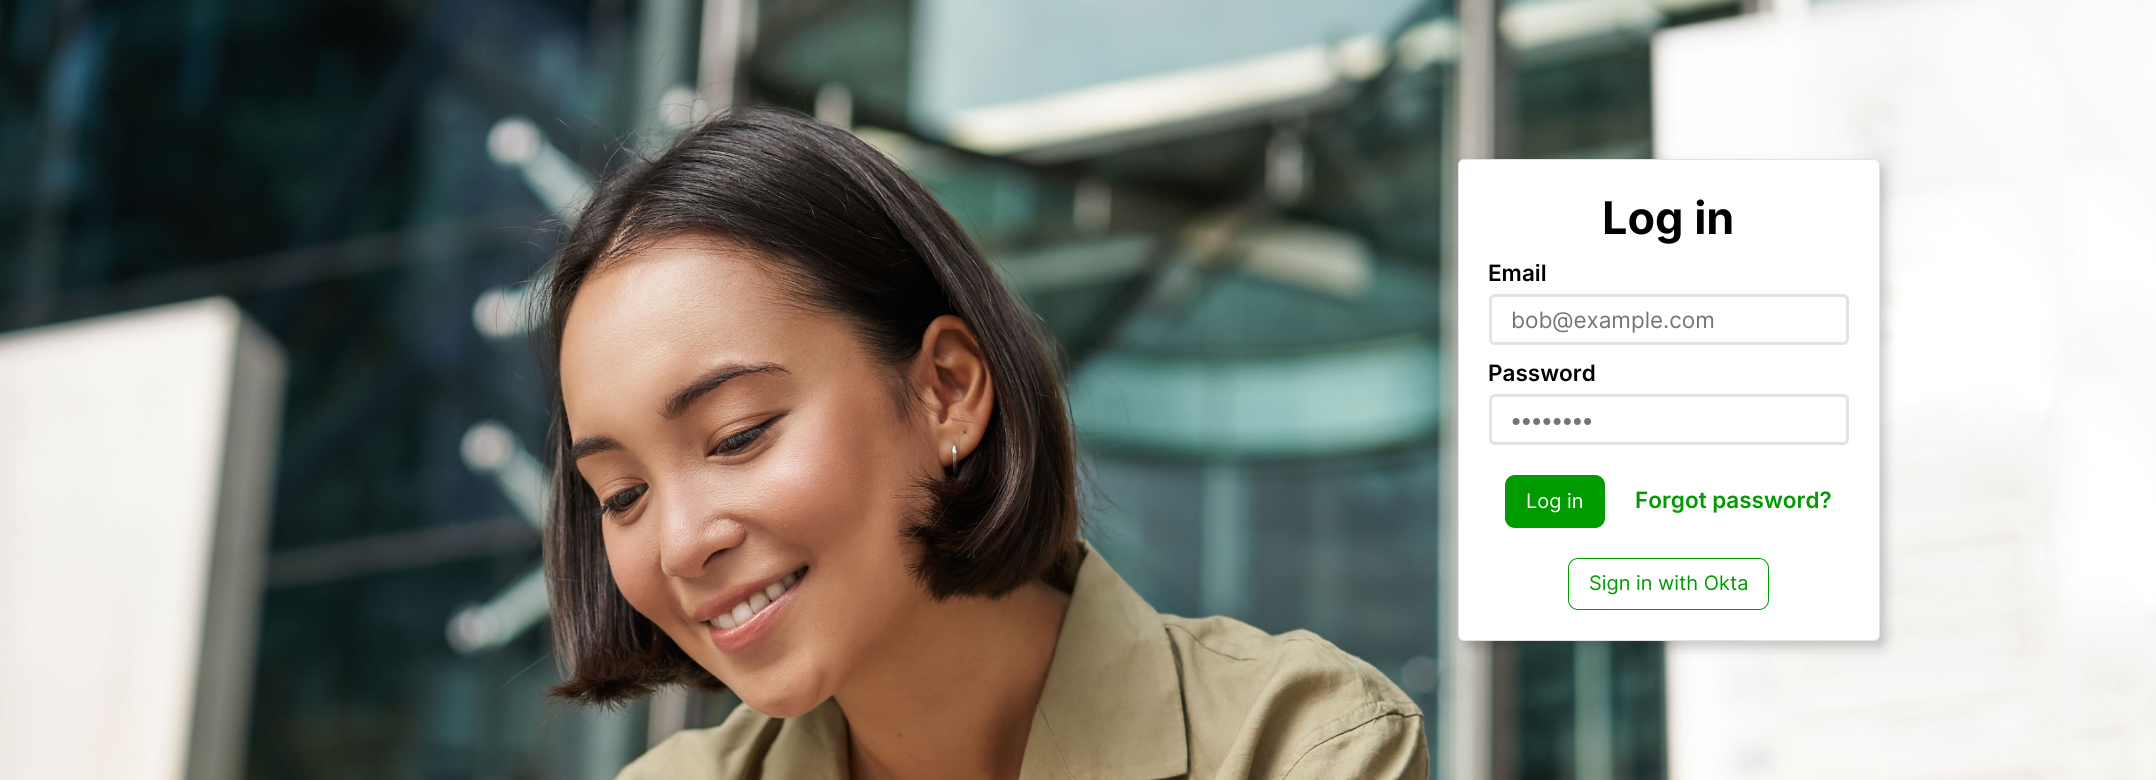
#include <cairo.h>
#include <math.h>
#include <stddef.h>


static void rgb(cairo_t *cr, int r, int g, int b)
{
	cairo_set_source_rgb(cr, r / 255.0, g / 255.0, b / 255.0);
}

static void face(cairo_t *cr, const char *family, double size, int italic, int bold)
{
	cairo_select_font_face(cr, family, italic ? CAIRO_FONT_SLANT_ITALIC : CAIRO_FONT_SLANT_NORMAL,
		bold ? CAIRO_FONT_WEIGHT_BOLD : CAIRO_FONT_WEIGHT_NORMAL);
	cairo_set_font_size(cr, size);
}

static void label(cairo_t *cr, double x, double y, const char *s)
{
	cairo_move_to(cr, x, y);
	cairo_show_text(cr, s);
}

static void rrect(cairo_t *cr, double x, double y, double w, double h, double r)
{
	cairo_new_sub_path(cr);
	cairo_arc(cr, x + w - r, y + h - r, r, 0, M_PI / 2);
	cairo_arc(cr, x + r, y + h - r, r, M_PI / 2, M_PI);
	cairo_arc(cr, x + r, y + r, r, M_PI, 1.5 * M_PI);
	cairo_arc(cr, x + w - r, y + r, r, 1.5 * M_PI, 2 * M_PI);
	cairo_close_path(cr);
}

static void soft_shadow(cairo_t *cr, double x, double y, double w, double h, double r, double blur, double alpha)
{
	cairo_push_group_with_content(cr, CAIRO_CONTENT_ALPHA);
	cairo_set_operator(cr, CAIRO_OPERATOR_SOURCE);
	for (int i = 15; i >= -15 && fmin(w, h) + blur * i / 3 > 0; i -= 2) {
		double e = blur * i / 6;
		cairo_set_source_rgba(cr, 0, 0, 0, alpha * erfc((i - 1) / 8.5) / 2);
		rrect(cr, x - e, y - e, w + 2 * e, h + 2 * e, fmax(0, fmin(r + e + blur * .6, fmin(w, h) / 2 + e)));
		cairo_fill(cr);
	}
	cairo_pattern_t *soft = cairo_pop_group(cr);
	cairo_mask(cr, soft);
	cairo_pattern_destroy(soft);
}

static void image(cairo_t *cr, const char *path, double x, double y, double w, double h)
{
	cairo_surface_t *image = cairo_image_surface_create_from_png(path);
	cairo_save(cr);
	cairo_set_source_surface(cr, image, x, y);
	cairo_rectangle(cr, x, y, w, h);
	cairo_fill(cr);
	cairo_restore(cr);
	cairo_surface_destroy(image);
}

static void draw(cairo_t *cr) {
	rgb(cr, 255, 255, 255);
	cairo_paint(cr);
	image(cr, "image0.png", 0, 0, 2156, 780);
	rgb(cr, 0, 0, 0);
	soft_shadow(cr, 1464, 165, 422, 483, 6, 6, 0.2);
	rgb(cr, 255, 255, 255);
	rrect(cr, 1458.5, 159.5, 421, 481, 5.5);
	cairo_fill_preserve(cr);
	rgb(cr, 227, 227, 227);
	cairo_set_line_width(cr, 1);
	cairo_stroke(cr);
	face(cr, "Inter", 45, 0, 1);
	rgb(cr, 0, 0, 0);
	label(cr, 1602, 234, "Log in");
	face(cr, "Inter SemiBold", 22.5, 0, 0);
	label(cr, 1488, 281, "Email");
	rrect(cr, 1490.5, 295.5, 357, 48, 4.5);
	rgb(cr, 227, 227, 227);
	cairo_set_line_width(cr, 3);
	cairo_stroke(cr);
	face(cr, "Inter", 22.5, 0, 0);
	rgb(cr, 117, 117, 117);
	label(cr, 1511, 328, "bob@example.com");
	face(cr, "Inter SemiBold", 22.5, 0, 0);
	rgb(cr, 0, 0, 0);
	label(cr, 1488, 381, "Password");
	rrect(cr, 1490.5, 395.5, 357, 48, 4.5);
	rgb(cr, 227, 227, 227);
	cairo_stroke(cr);
	face(cr, "Inter", 22.5, 0, 0);
	rgb(cr, 117, 117, 117);
	label(cr, 1511, 428, "••••••••");
	rgb(cr, 0, 155, 0);
	rrect(cr, 1505, 475, 100, 53, 10);
	cairo_fill(cr);
	face(cr, "Inter", 20, 0, 0);
	rgb(cr, 255, 255, 255);
	label(cr, 1526, 508, "Log in");
	face(cr, "Inter SemiBold", 22.5, 0, 0);
	rgb(cr, 0, 155, 0);
	label(cr, 1635, 508, "Forgot password?");
	rrect(cr, 1568.5, 558.5, 200, 51, 9.5);
	cairo_set_line_width(cr, 1);
	cairo_stroke(cr);
	face(cr, "Inter", 20, 0, 0);
	label(cr, 1589, 590, "Sign in with Okta");
}

int main(void) {
	cairo_surface_t *surface = cairo_image_surface_create(CAIRO_FORMAT_RGB24, 2156, 780);
	cairo_t *cr = cairo_create(surface);
	cairo_font_options_t *options = cairo_font_options_create();
	cairo_font_options_set_hint_metrics(options, CAIRO_HINT_METRICS_OFF);
	cairo_font_options_set_hint_style(options, CAIRO_HINT_STYLE_NONE);
	cairo_set_font_options(cr, options);
	cairo_set_miter_limit(cr, 4);
	draw(cr);
	cairo_surface_write_to_png(surface, "render.png");
	cairo_font_options_destroy(options);
	cairo_destroy(cr);
	cairo_surface_destroy(surface);
	return 0;
}
